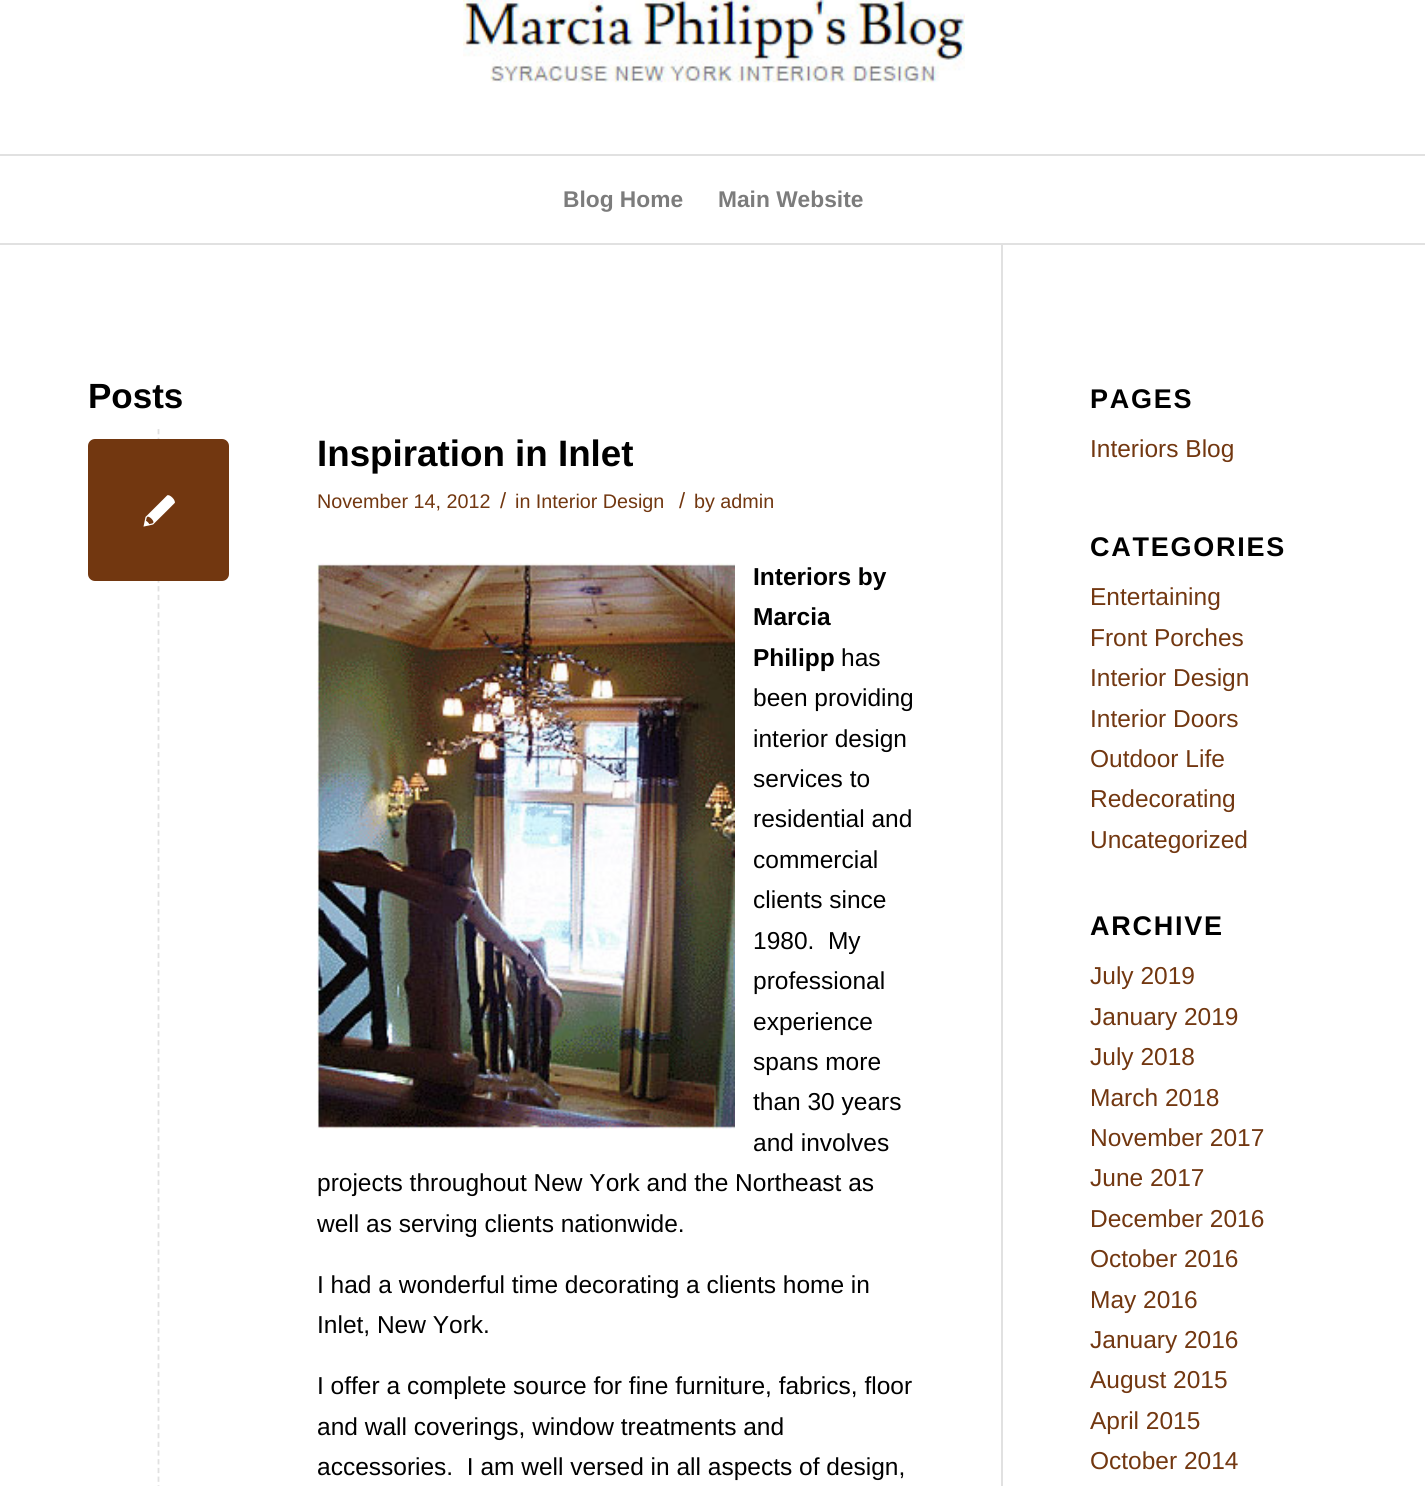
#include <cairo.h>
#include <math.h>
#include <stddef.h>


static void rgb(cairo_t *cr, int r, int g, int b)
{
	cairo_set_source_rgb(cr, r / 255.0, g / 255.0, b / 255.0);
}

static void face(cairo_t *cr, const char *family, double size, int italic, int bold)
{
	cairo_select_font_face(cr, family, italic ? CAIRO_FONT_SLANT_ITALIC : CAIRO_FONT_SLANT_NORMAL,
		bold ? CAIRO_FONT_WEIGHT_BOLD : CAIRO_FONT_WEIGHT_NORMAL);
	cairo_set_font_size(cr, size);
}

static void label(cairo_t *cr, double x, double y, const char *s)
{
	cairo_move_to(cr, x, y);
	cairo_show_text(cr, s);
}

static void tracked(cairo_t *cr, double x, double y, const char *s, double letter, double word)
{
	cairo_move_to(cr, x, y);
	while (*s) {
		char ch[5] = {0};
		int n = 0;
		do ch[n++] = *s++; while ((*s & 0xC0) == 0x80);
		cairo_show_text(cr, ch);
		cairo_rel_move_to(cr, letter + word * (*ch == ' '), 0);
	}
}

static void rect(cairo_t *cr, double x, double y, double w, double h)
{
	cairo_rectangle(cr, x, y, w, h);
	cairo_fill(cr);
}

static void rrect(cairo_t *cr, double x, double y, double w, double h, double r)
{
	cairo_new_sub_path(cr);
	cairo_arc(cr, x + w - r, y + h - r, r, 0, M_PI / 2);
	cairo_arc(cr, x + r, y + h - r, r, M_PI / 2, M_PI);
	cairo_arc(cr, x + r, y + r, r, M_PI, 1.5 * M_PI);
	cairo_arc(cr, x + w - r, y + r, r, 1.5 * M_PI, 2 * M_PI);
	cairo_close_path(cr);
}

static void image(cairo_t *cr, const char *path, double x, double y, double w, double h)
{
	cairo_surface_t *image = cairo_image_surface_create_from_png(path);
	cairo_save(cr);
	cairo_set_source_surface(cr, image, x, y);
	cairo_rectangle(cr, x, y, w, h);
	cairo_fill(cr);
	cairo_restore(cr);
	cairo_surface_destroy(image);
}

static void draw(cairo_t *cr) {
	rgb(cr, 255, 255, 255);
	cairo_paint(cr);
	rgb(cr, 225, 225, 225);
	rect(cr, 0, 243, 1425, 2);
	image(cr, "image0.png", 463, 0, 502, 83);
	rect(cr, 0, 154, 1425, 2);
	face(cr, "Liberation Sans", 22.75, 0, 1);
	rgb(cr, 124, 124, 124);
	label(cr, 563, 207, "Blog Home");
	label(cr, 718, 207, "Main Website");
	rgb(cr, 225, 225, 225);
	rect(cr, 1001, 245, 2, 1241);
	face(cr, "Liberation Sans", 35, 0, 1);
	rgb(cr, 0, 0, 0);
	label(cr, 88, 408, "Posts");
	cairo_new_path(cr);
	cairo_move_to(cr, 158.5, 429);
	cairo_line_to(cr, 158.5, 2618);
	rgb(cr, 225, 225, 225);
	cairo_set_line_width(cr, 1.8);
	cairo_set_dash(cr, (double[]){5.25, 3.48}, 2, 0);
	cairo_stroke(cr);
	rgb(cr, 114, 55, 16);
	rrect(cr, 88, 439, 141, 142, 7);
	cairo_fill(cr);
	image(cr, "image1.png", 143, 495, 32, 32);
	face(cr, "Liberation Sans", 36.75, 0, 1);
	rgb(cr, 0, 0, 0);
	label(cr, 317, 466, "Inspiration in Inlet");
	face(cr, "Liberation Sans", 19.75, 0, 0);
	rgb(cr, 114, 55, 16);
	label(cr, 317, 508, "November 14, 2012");
	face(cr, "Liberation Sans", 22, 0, 0);
	label(cr, 500, 508, "/");
	face(cr, "Liberation Sans", 19.75, 0, 0);
	label(cr, 515, 508, "in Interior Design");
	face(cr, "Liberation Sans", 22, 0, 0);
	label(cr, 679, 508, "/");
	face(cr, "Liberation Sans", 19.75, 0, 0);
	label(cr, 694, 508, "by admin");
	image(cr, "image2.png", 317, 563, 418, 566);
	face(cr, "Liberation Sans", 24.5, 0, 1);
	rgb(cr, 0, 0, 0);
	label(cr, 753, 585, "Interiors by");
	label(cr, 753, 625, "Marcia");
	label(cr, 753, 666, "Philipp");
	face(cr, "Liberation Sans", 24.5, 0, 0);
	label(cr, 841, 666, "has");
	label(cr, 753, 706, "been providing");
	label(cr, 753, 747, "interior design");
	label(cr, 753, 787, "services to");
	label(cr, 753, 827, "residential and");
	label(cr, 753, 868, "commercial");
	label(cr, 753, 908, "clients since");
	label(cr, 753, 949, "1980.  My");
	label(cr, 753, 989, "professional");
	label(cr, 753, 1030, "experience");
	label(cr, 753, 1070, "spans more");
	label(cr, 753, 1110, "than 30 years");
	label(cr, 753, 1151, "and involves");
	label(cr, 317, 1191, "projects throughout New York and the Northeast as");
	label(cr, 317, 1232, "well as serving clients nationwide.");
	label(cr, 317, 1293, "I had a wonderful time decorating a clients home in");
	label(cr, 317, 1333, "Inlet, New York.");
	label(cr, 317, 1394, "I offer a complete source for fine furniture, fabrics, floor");
	label(cr, 317, 1435, "and wall coverings, window treatments and");
	label(cr, 317, 1475, "accessories.  I am well versed in all aspects of design,");
	face(cr, "Liberation Sans", 27, 0, 1);
	tracked(cr, 1090, 408, "PAGES", 1.75, 0);
	face(cr, "Liberation Sans", 24.5, 0, 0);
	rgb(cr, 114, 55, 16);
	label(cr, 1090, 457, "Interiors Blog");
	face(cr, "Liberation Sans", 27, 0, 1);
	rgb(cr, 0, 0, 0);
	tracked(cr, 1090, 556, "CATEGORIES", 1.75, 0);
	face(cr, "Liberation Sans", 24.5, 0, 0);
	rgb(cr, 114, 55, 16);
	label(cr, 1090, 605, "Entertaining");
	label(cr, 1090, 646, "Front Porches");
	label(cr, 1090, 686, "Interior Design");
	label(cr, 1090, 727, "Interior Doors");
	label(cr, 1090, 767, "Outdoor Life");
	label(cr, 1090, 807, "Redecorating");
	label(cr, 1090, 848, "Uncategorized");
	face(cr, "Liberation Sans", 27, 0, 1);
	rgb(cr, 0, 0, 0);
	tracked(cr, 1090, 935, "ARCHIVE", 1.75, 0);
	face(cr, "Liberation Sans", 24.5, 0, 0);
	rgb(cr, 114, 55, 16);
	label(cr, 1090, 984, "July 2019");
	label(cr, 1090, 1025, "January 2019");
	label(cr, 1090, 1065, "July 2018");
	label(cr, 1090, 1106, "March 2018");
	label(cr, 1090, 1146, "November 2017");
	label(cr, 1090, 1186, "June 2017");
	label(cr, 1090, 1227, "December 2016");
	label(cr, 1090, 1267, "October 2016");
	label(cr, 1090, 1308, "May 2016");
	label(cr, 1090, 1348, "January 2016");
	label(cr, 1090, 1388, "August 2015");
	label(cr, 1090, 1429, "April 2015");
	label(cr, 1090, 1469, "October 2014");
}

int main(void) {
	cairo_surface_t *surface = cairo_image_surface_create(CAIRO_FORMAT_RGB24, 1425, 1486);
	cairo_t *cr = cairo_create(surface);
	cairo_font_options_t *options = cairo_font_options_create();
	cairo_font_options_set_hint_metrics(options, CAIRO_HINT_METRICS_OFF);
	cairo_font_options_set_hint_style(options, CAIRO_HINT_STYLE_NONE);
	cairo_set_font_options(cr, options);
	cairo_set_miter_limit(cr, 4);
	draw(cr);
	cairo_surface_write_to_png(surface, "render.png");
	cairo_font_options_destroy(options);
	cairo_destroy(cr);
	cairo_surface_destroy(surface);
	return 0;
}
